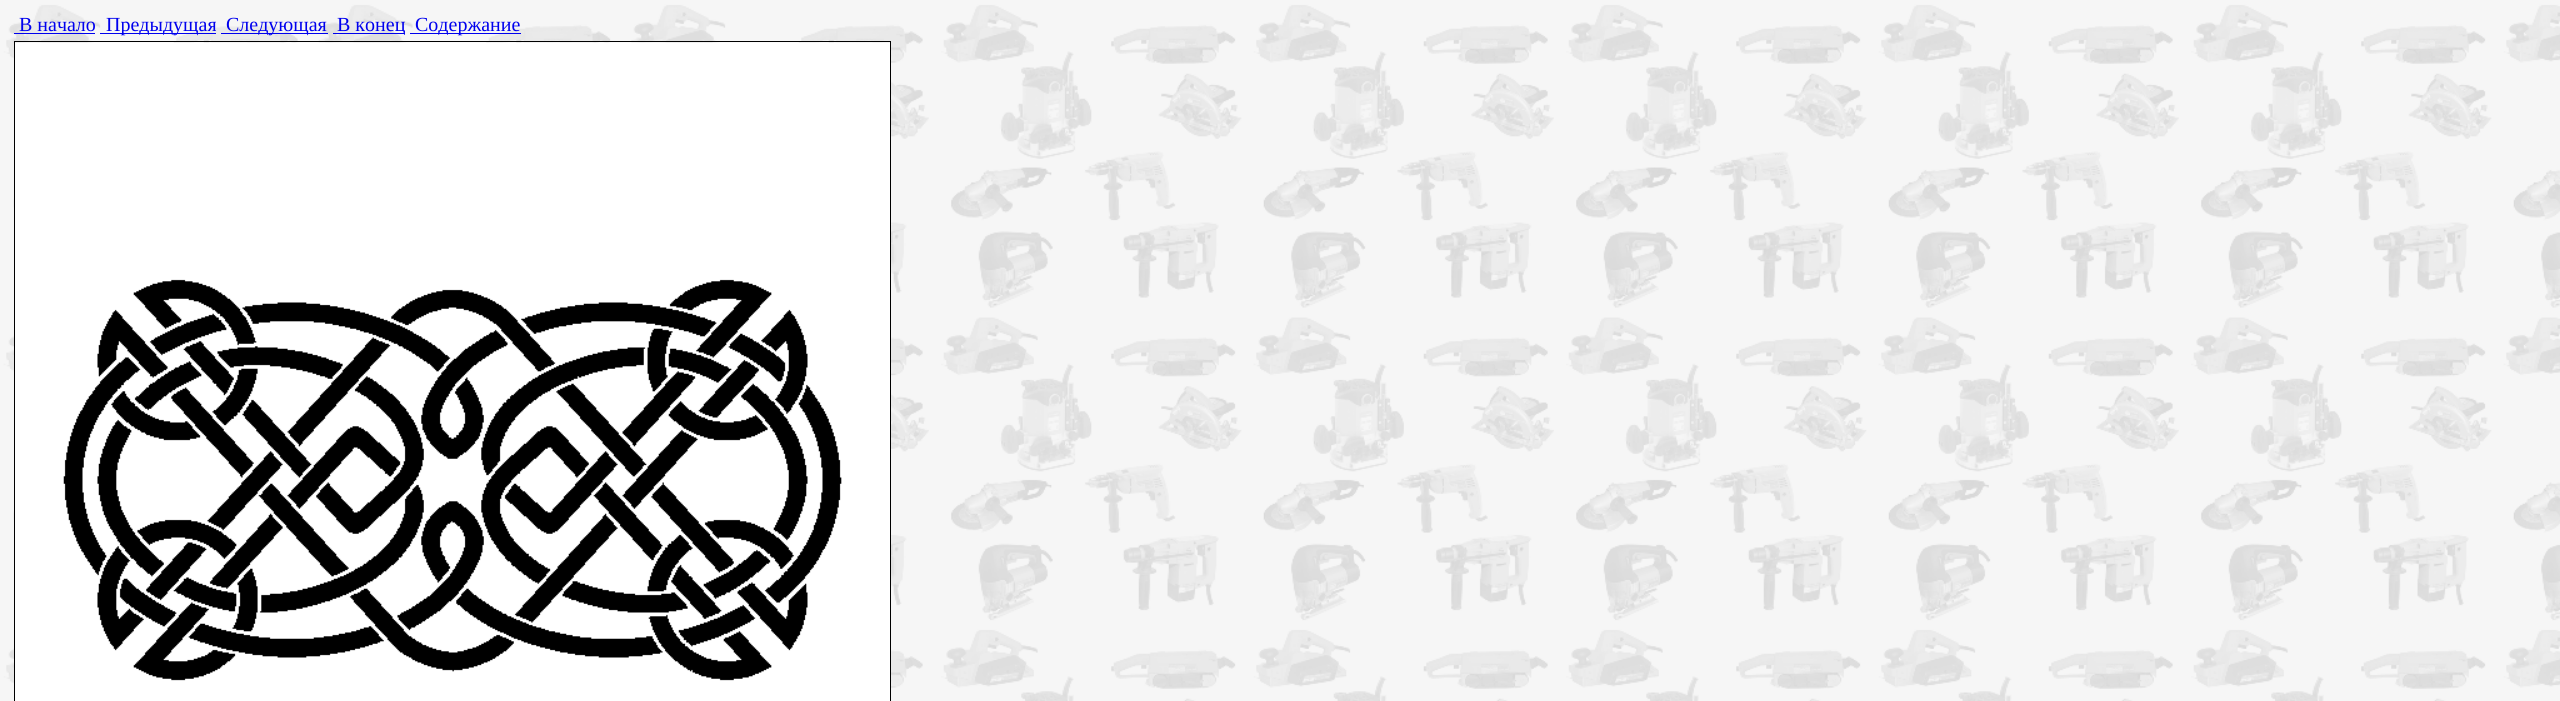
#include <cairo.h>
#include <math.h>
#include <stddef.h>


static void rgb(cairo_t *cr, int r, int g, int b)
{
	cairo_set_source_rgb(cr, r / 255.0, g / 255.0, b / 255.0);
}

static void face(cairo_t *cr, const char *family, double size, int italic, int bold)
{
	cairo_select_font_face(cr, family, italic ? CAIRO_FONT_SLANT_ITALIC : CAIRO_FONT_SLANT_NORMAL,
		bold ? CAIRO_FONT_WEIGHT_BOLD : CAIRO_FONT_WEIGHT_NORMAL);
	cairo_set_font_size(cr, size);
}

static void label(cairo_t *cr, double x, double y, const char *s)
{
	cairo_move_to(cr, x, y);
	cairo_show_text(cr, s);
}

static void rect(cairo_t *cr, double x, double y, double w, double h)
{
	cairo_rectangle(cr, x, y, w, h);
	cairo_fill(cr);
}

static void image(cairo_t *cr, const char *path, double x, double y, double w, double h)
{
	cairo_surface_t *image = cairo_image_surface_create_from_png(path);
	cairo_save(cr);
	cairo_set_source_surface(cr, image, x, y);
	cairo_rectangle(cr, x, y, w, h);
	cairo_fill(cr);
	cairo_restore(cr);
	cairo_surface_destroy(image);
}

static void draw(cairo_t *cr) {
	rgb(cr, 255, 255, 255);
	cairo_paint(cr);
	image(cr, "image0.png", 0, 0, 2560, 701);
	face(cr, "Liberation Serif", 20, 0, 0);
	rgb(cr, 0, 0, 238);
	label(cr, 19, 31, "В начало");
	rect(cr, 14, 33, 81, 1);
	rect(cr, 100, 33, 116, 1);
	label(cr, 106, 31, "Предыдущая");
	rect(cr, 221, 33, 107, 1);
	label(cr, 226, 31, "Следующая");
	rect(cr, 333, 33, 72, 1);
	label(cr, 337, 31, "В конец");
	rect(cr, 410, 33, 111, 1);
	label(cr, 415, 31, "Содержание");
	cairo_rectangle(cr, 14.5, 41.5, 876, 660);
	rgb(cr, 0, 0, 0);
	cairo_set_line_width(cr, 1);
	cairo_stroke(cr);
	image(cr, "image1.png", 15, 42, 875, 659);
}

int main(void) {
	cairo_surface_t *surface = cairo_image_surface_create(CAIRO_FORMAT_RGB24, 2560, 701);
	cairo_t *cr = cairo_create(surface);
	cairo_font_options_t *options = cairo_font_options_create();
	cairo_font_options_set_hint_metrics(options, CAIRO_HINT_METRICS_OFF);
	cairo_font_options_set_hint_style(options, CAIRO_HINT_STYLE_NONE);
	cairo_set_font_options(cr, options);
	cairo_set_miter_limit(cr, 4);
	draw(cr);
	cairo_surface_write_to_png(surface, "render.png");
	cairo_font_options_destroy(options);
	cairo_destroy(cr);
	cairo_surface_destroy(surface);
	return 0;
}
